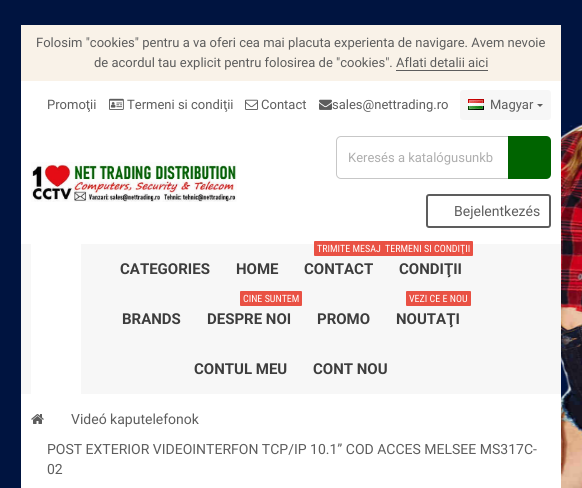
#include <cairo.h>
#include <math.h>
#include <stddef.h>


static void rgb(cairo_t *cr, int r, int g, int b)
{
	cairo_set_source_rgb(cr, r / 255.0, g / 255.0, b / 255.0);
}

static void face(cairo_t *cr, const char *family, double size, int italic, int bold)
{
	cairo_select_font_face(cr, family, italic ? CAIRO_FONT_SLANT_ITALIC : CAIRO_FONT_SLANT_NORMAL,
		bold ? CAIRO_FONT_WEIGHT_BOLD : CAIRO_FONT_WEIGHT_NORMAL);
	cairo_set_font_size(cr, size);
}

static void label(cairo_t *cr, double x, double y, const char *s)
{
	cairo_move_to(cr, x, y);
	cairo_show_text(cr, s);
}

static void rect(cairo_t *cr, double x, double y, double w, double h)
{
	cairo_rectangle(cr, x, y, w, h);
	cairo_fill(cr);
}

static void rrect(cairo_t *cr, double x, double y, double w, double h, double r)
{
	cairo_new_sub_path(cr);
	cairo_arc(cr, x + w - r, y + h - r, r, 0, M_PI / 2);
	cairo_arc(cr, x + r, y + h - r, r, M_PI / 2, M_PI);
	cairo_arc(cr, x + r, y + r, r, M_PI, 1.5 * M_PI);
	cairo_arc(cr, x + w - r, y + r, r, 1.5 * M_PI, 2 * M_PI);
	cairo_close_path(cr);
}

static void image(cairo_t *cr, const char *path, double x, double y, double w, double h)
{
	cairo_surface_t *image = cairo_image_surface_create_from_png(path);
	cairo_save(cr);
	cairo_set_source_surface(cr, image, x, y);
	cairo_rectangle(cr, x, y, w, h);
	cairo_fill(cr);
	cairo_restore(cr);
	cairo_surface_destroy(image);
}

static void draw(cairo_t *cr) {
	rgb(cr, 0, 20, 64);
	cairo_paint(cr);
	image(cr, "image0.png", 561, 123, 21, 365);
	rgb(cr, 255, 255, 255);
	rect(cr, 21, 81, 540, 163);
	rgb(cr, 249, 242, 232);
	rect(cr, 21, 25, 540, 56);
	face(cr, "Roboto", 13, 0, 0);
	rgb(cr, 93, 93, 93);
	label(cr, 36, 47, "Folosim \"cookies\" pentru a va oferi cea mai placuta experienta de navigare. Avem nevoie");
	label(cr, 94, 67, "de acordul tau explicit pentru folosirea de \"cookies\". Aflati detalii aici");
	rect(cr, 396, 70, 92, 1);
	label(cr, 47, 109, "Promoţii");
	image(cr, "image1.png", 109, 98, 15, 12);
	label(cr, 127, 109, "Termeni si condiţii");
	image(cr, "image2.png", 245, 99, 13, 11);
	label(cr, 261, 109, "Contact");
	image(cr, "image3.png", 319, 99, 13, 11);
	label(cr, 332, 109, "sales@nettrading.ro");
	rgb(cr, 247, 247, 247);
	rrect(cr, 460, 90, 91, 30, 3);
	cairo_fill(cr);
	image(cr, "image4.png", 468, 99, 16, 11);
	rgb(cr, 93, 93, 93);
	label(cr, 490, 109, "Magyar");
	cairo_new_path(cr);
	cairo_move_to(cr, 537, 104);
	cairo_line_to(cr, 543, 104);
	cairo_line_to(cr, 540, 107);
	cairo_close_path(cr);
	cairo_fill(cr);
	image(cr, "image5.png", 31, 162, 206, 40);
	rrect(cr, 336.5, 136.5, 213, 42, 4.5);
	rgb(cr, 199, 199, 199);
	cairo_set_line_width(cr, 1);
	cairo_stroke(cr);
	rgb(cr, 174, 174, 174);
	label(cr, 348, 162, "Keresés a katalógusunkb");
	rgb(cr, 0, 100, 0);
	cairo_new_path(cr);
	cairo_move_to(cr, 508, 136);
	cairo_line_to(cr, 546, 136);
	cairo_curve_to(cr, 549, 136, 551, 138, 551, 141);
	cairo_line_to(cr, 551, 174);
	cairo_curve_to(cr, 551, 177, 549, 179, 546, 179);
	cairo_line_to(cr, 508, 179);
	cairo_close_path(cr);
	cairo_fill(cr);
	rrect(cr, 427, 195, 123, 32, 2);
	rgb(cr, 93, 93, 93);
	cairo_set_line_width(cr, 2);
	cairo_stroke(cr);
	face(cr, "Roboto", 14, 0, 0);
	label(cr, 454, 216, "Bejelentkezés");
	rgb(cr, 247, 247, 247);
	rect(cr, 21, 244, 540, 150);
	rgb(cr, 255, 255, 255);
	rect(cr, 31, 244, 50, 150);
	face(cr, "Roboto", 15, 0, 1);
	rgb(cr, 61, 61, 61);
	label(cr, 120, 274, "CATEGORIES");
	label(cr, 236, 274, "HOME");
	rgb(cr, 233, 81, 68);
	rrect(cr, 314, 241, 70, 15, 1);
	cairo_fill(cr);
	face(cr, "Roboto Condensed", 10, 0, 0);
	rgb(cr, 255, 255, 255);
	label(cr, 317, 252, "TRIMITE MESAJ");
	face(cr, "Roboto", 15, 0, 1);
	rgb(cr, 61, 61, 61);
	label(cr, 304, 274, "CONTACT");
	rgb(cr, 233, 81, 68);
	rrect(cr, 382, 241, 91, 15, 1);
	cairo_fill(cr);
	face(cr, "Roboto Condensed", 10, 0, 0);
	rgb(cr, 255, 255, 255);
	label(cr, 385, 252, "TERMENI SI CONDIŢII");
	face(cr, "Roboto", 15, 0, 1);
	rgb(cr, 61, 61, 61);
	label(cr, 399, 274, "CONDIŢII");
	label(cr, 122, 324, "BRANDS");
	rgb(cr, 233, 81, 68);
	rrect(cr, 240, 291, 62, 15, 1);
	cairo_fill(cr);
	face(cr, "Roboto Condensed", 10, 0, 0);
	rgb(cr, 255, 255, 255);
	label(cr, 243, 302, "CINE SUNTEM");
	face(cr, "Roboto", 15, 0, 1);
	rgb(cr, 61, 61, 61);
	label(cr, 207, 324, "DESPRE NOI");
	label(cr, 317, 324, "PROMO");
	rgb(cr, 233, 81, 68);
	rrect(cr, 406, 291, 65, 15, 1);
	cairo_fill(cr);
	face(cr, "Roboto Condensed", 10, 0, 0);
	rgb(cr, 255, 255, 255);
	label(cr, 409, 302, "VEZI CE E NOU");
	face(cr, "Roboto", 15, 0, 1);
	rgb(cr, 61, 61, 61);
	label(cr, 396, 324, "NOUTAŢI");
	label(cr, 194, 374, "CONTUL MEU");
	label(cr, 313, 374, "CONT NOU");
	rgb(cr, 255, 255, 255);
	rect(cr, 21, 394, 540, 94);
	image(cr, "image6.png", 31, 414, 13, 10);
	face(cr, "Roboto", 14, 0, 0);
	rgb(cr, 93, 93, 93);
	label(cr, 71, 424, "Videó kaputelefonok");
	label(cr, 47, 454, "POST EXTERIOR VIDEOINTERFON TCP/IP 10.1” COD ACCES MELSEE MS317C-");
	label(cr, 47, 474, "02");
}

int main(void) {
	cairo_surface_t *surface = cairo_image_surface_create(CAIRO_FORMAT_RGB24, 582, 488);
	cairo_t *cr = cairo_create(surface);
	cairo_font_options_t *options = cairo_font_options_create();
	cairo_font_options_set_hint_metrics(options, CAIRO_HINT_METRICS_OFF);
	cairo_font_options_set_hint_style(options, CAIRO_HINT_STYLE_NONE);
	cairo_set_font_options(cr, options);
	cairo_set_miter_limit(cr, 4);
	draw(cr);
	cairo_surface_write_to_png(surface, "render.png");
	cairo_font_options_destroy(options);
	cairo_destroy(cr);
	cairo_surface_destroy(surface);
	return 0;
}
